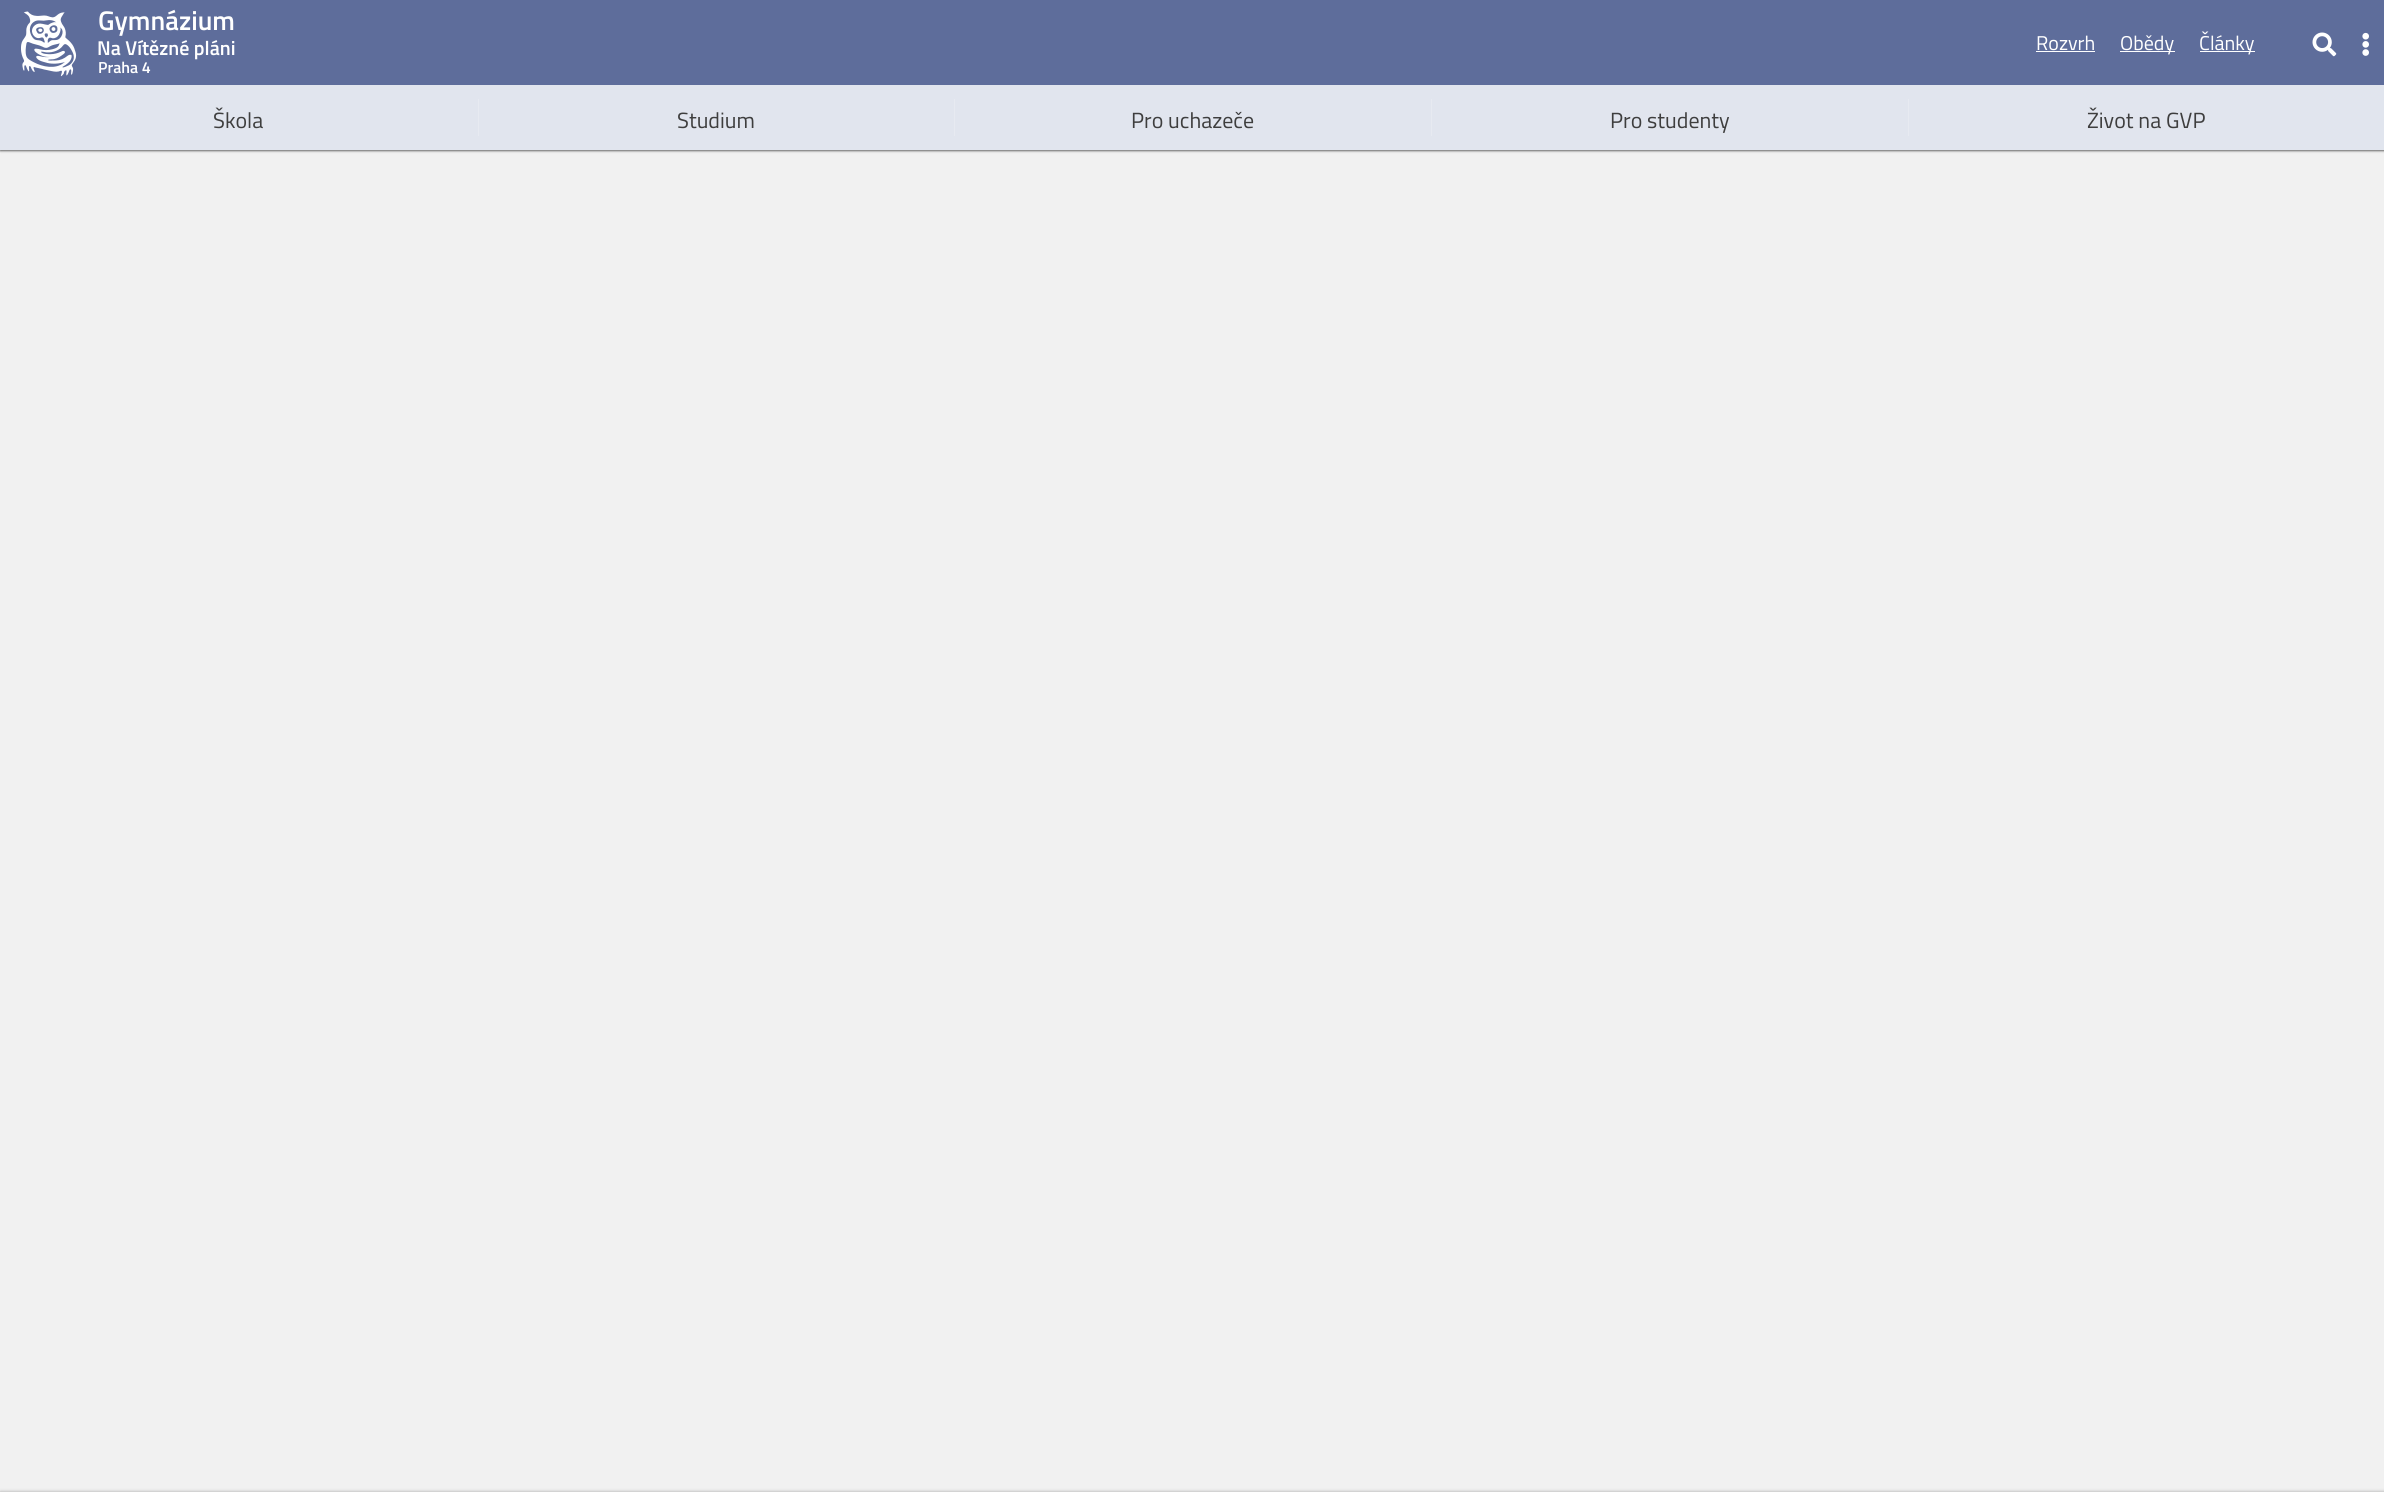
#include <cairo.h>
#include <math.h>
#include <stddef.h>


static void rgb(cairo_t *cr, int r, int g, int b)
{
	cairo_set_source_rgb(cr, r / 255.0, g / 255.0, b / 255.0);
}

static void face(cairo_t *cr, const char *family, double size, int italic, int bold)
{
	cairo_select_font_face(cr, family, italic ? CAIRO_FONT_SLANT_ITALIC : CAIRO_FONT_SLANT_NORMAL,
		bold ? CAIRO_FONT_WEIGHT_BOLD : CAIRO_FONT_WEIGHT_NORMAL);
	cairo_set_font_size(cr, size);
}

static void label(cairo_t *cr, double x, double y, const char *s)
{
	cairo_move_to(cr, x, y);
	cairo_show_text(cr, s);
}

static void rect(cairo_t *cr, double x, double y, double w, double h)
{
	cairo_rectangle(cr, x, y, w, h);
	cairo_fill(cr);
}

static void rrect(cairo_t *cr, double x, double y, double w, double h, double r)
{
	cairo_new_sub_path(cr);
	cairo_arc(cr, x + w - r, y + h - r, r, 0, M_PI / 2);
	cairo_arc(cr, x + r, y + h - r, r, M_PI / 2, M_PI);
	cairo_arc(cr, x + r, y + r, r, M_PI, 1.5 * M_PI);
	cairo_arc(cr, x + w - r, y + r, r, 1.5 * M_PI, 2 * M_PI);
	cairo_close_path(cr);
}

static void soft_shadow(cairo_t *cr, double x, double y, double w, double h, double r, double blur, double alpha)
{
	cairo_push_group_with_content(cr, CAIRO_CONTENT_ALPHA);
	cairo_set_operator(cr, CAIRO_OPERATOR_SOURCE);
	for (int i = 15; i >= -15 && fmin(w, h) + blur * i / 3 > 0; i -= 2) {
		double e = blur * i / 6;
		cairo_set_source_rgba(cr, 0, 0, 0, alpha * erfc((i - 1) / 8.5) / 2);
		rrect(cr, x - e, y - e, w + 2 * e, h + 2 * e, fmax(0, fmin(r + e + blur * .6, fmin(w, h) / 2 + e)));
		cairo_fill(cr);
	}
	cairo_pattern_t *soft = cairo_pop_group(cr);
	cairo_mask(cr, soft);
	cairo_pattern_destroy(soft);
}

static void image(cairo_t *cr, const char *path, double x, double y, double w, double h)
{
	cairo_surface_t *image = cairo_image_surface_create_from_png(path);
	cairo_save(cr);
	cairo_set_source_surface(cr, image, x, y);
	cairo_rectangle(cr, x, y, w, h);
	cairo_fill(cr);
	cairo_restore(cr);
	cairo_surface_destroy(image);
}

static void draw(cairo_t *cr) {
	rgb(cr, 241, 241, 241);
	cairo_paint(cr);
	rgb(cr, 0, 0, 0);
	soft_shadow(cr, 0, 1, 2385, 150, 0, 1, 0.57);
	rgb(cr, 94, 109, 155);
	rect(cr, 0, 0, 2384, 85);
	image(cr, "image0.png", 21, 11, 56, 66);
	face(cr, "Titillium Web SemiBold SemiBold", 27, 0, 0);
	rgb(cr, 255, 255, 255);
	label(cr, 98, 30, "Gymnázium");
	face(cr, "Titillium Web SemiBold SemiBold", 20, 0, 0);
	label(cr, 97, 55, "Na Vítězné pláni");
	face(cr, "Titillium Web SemiBold SemiBold", 16, 0, 0);
	label(cr, 98, 73, "Praha 4");
	face(cr, "Titillium Web", 20, 0, 0);
	label(cr, 2036, 50, "Rozvrh");
	rect(cr, 2036, 51, 59, 1);
	rect(cr, 2120, 51, 55, 1);
	label(cr, 2120, 50, "Obědy");
	rect(cr, 2200, 51, 55, 1);
	label(cr, 2199, 50, "Články");
	image(cr, "image1.png", 2312, 32, 25, 25);
	image(cr, "image2.png", 2362, 32, 7, 24);
	rgb(cr, 225, 229, 238);
	rect(cr, 0, 85, 2384, 65);
	face(cr, "Titillium Web", 22, 0, 0);
	rgb(cr, 62, 62, 62);
	label(cr, 213, 128, "Škola");
	rgb(cr, 231, 234, 241);
	rect(cr, 478, 99, 1, 37);
	rgb(cr, 62, 62, 62);
	label(cr, 677, 128, "Studium");
	rgb(cr, 231, 234, 241);
	rect(cr, 954, 99, 1, 37);
	rgb(cr, 62, 62, 62);
	label(cr, 1131, 128, "Pro uchazeče");
	rgb(cr, 231, 234, 241);
	rect(cr, 1431, 99, 1, 37);
	rgb(cr, 62, 62, 62);
	label(cr, 1610, 128, "Pro studenty");
	rgb(cr, 231, 234, 241);
	rect(cr, 1908, 99, 1, 37);
	rgb(cr, 62, 62, 62);
	label(cr, 2087, 128, "Život na GVP");
	rgb(cr, 0, 0, 0);
	soft_shadow(cr, 0, 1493, 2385, 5, 0, 2, 0.57);
}

int main(void) {
	cairo_surface_t *surface = cairo_image_surface_create(CAIRO_FORMAT_RGB24, 2384, 1492);
	cairo_t *cr = cairo_create(surface);
	cairo_font_options_t *options = cairo_font_options_create();
	cairo_font_options_set_hint_metrics(options, CAIRO_HINT_METRICS_OFF);
	cairo_font_options_set_hint_style(options, CAIRO_HINT_STYLE_NONE);
	cairo_set_font_options(cr, options);
	cairo_set_miter_limit(cr, 4);
	draw(cr);
	cairo_surface_write_to_png(surface, "render.png");
	cairo_font_options_destroy(options);
	cairo_destroy(cr);
	cairo_surface_destroy(surface);
	return 0;
}
